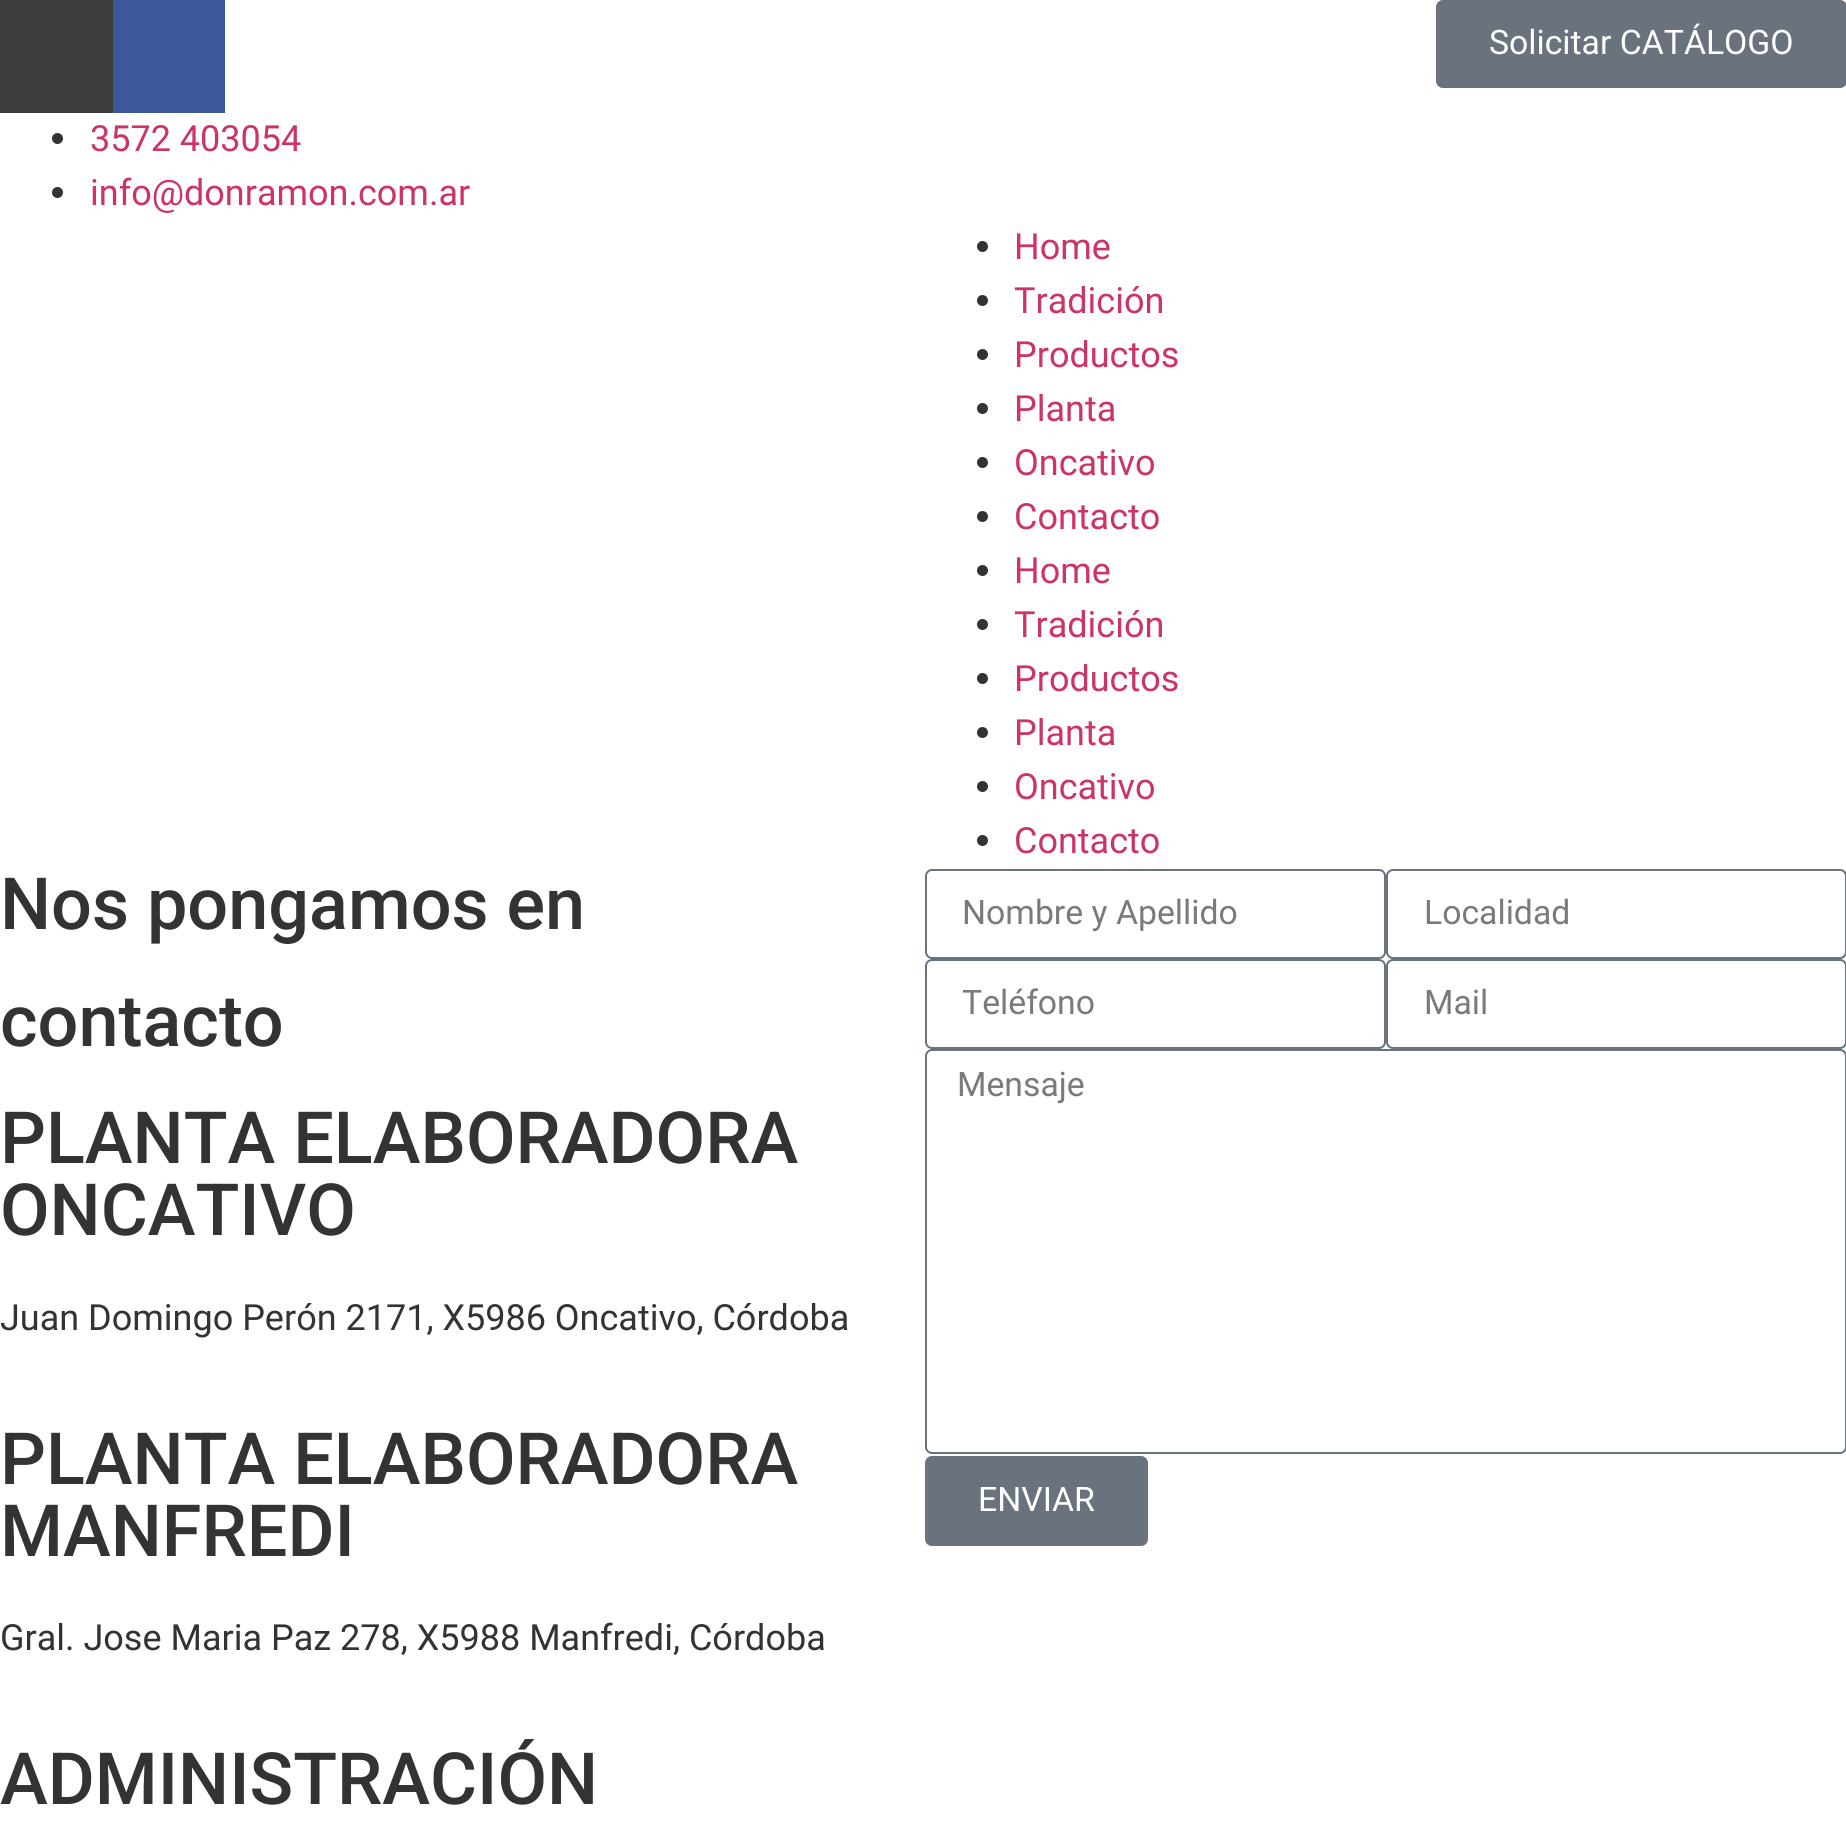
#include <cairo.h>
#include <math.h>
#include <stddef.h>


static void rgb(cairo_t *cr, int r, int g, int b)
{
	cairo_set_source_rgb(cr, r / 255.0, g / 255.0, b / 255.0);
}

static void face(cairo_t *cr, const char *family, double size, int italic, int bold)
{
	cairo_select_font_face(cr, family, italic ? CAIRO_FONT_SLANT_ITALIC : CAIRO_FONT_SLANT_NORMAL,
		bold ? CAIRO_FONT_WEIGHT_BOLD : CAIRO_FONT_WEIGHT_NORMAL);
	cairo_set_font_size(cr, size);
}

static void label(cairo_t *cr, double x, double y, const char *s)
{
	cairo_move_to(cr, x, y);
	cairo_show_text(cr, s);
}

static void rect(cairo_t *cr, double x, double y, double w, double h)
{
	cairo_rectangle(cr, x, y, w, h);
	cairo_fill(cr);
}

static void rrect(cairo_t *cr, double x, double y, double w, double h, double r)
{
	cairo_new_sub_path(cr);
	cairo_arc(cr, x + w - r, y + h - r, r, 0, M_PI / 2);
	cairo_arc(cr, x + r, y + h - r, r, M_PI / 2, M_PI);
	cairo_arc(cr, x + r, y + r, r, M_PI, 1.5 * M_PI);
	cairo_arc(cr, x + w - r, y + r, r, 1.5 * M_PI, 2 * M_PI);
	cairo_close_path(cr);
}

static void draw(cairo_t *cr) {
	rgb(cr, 255, 255, 255);
	cairo_paint(cr);
	rgb(cr, 105, 114, 125);
	rrect(cr, 1436, 0, 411, 88, 7);
	cairo_fill(cr);
	face(cr, "Roboto", 33.75, 0, 0);
	rgb(cr, 255, 255, 255);
	label(cr, 1489, 54, "Solicitar CATÁLOGO");
	rgb(cr, 60, 60, 60);
	rect(cr, 0, 0, 113, 113);
	rgb(cr, 59, 89, 152);
	rect(cr, 113, 0, 112, 113);
	rgb(cr, 51, 51, 51);
	cairo_new_path(cr);
	cairo_arc(cr, 57.5, 138.5, 5.5, 0, 2 * M_PI);
	cairo_fill(cr);
	face(cr, "Roboto", 36, 0, 0);
	rgb(cr, 204, 51, 102);
	label(cr, 90, 151, "3572 403054");
	rgb(cr, 51, 51, 51);
	cairo_new_path(cr);
	cairo_arc(cr, 57.5, 192.5, 5.5, 0, 2 * M_PI);
	cairo_fill(cr);
	rgb(cr, 204, 51, 102);
	label(cr, 90, 205, "info@donramon.com.ar");
	rgb(cr, 51, 51, 51);
	cairo_new_path(cr);
	cairo_arc(cr, 982.5, 246.5, 5.5, 0, 2 * M_PI);
	cairo_fill(cr);
	rgb(cr, 204, 51, 102);
	label(cr, 1014, 259, "Home");
	rgb(cr, 51, 51, 51);
	cairo_new_path(cr);
	cairo_arc(cr, 982.5, 300.5, 5.5, 0, 2 * M_PI);
	cairo_fill(cr);
	rgb(cr, 204, 51, 102);
	label(cr, 1014, 313, "Tradición");
	rgb(cr, 51, 51, 51);
	cairo_new_path(cr);
	cairo_arc(cr, 982.5, 354.5, 5.5, 0, 2 * M_PI);
	cairo_fill(cr);
	rgb(cr, 204, 51, 102);
	label(cr, 1014, 367, "Productos");
	rgb(cr, 51, 51, 51);
	cairo_new_path(cr);
	cairo_arc(cr, 982.5, 408.5, 5.5, 0, 2 * M_PI);
	cairo_fill(cr);
	rgb(cr, 204, 51, 102);
	label(cr, 1014, 421, "Planta");
	rgb(cr, 51, 51, 51);
	cairo_new_path(cr);
	cairo_arc(cr, 982.5, 462.5, 5.5, 0, 2 * M_PI);
	cairo_fill(cr);
	rgb(cr, 204, 51, 102);
	label(cr, 1014, 475, "Oncativo");
	rgb(cr, 51, 51, 51);
	cairo_new_path(cr);
	cairo_arc(cr, 982.5, 516.5, 5.5, 0, 2 * M_PI);
	cairo_fill(cr);
	rgb(cr, 204, 51, 102);
	label(cr, 1014, 529, "Contacto");
	rgb(cr, 51, 51, 51);
	cairo_new_path(cr);
	cairo_arc(cr, 982.5, 570.5, 5.5, 0, 2 * M_PI);
	cairo_fill(cr);
	rgb(cr, 204, 51, 102);
	label(cr, 1014, 583, "Home");
	rgb(cr, 51, 51, 51);
	cairo_new_path(cr);
	cairo_arc(cr, 982.5, 624.5, 5.5, 0, 2 * M_PI);
	cairo_fill(cr);
	rgb(cr, 204, 51, 102);
	label(cr, 1014, 637, "Tradición");
	rgb(cr, 51, 51, 51);
	cairo_new_path(cr);
	cairo_arc(cr, 982.5, 678.5, 5.5, 0, 2 * M_PI);
	cairo_fill(cr);
	rgb(cr, 204, 51, 102);
	label(cr, 1014, 691, "Productos");
	rgb(cr, 51, 51, 51);
	cairo_new_path(cr);
	cairo_arc(cr, 982.5, 732.5, 5.5, 0, 2 * M_PI);
	cairo_fill(cr);
	rgb(cr, 204, 51, 102);
	label(cr, 1014, 745, "Planta");
	rgb(cr, 51, 51, 51);
	cairo_new_path(cr);
	cairo_arc(cr, 982.5, 786.5, 5.5, 0, 2 * M_PI);
	cairo_fill(cr);
	rgb(cr, 204, 51, 102);
	label(cr, 1014, 799, "Oncativo");
	rgb(cr, 51, 51, 51);
	cairo_new_path(cr);
	cairo_arc(cr, 982.5, 840.5, 5.5, 0, 2 * M_PI);
	cairo_fill(cr);
	rgb(cr, 204, 51, 102);
	label(cr, 1014, 853, "Contacto");
	face(cr, "Roboto Medium", 72, 0, 0);
	rgb(cr, 51, 51, 51);
	label(cr, 0, 929, "Nos pongamos en");
	label(cr, 0, 1046, "contacto");
	label(cr, 0, 1163, "PLANTA ELABORADORA");
	label(cr, 0, 1235, "ONCATIVO");
	face(cr, "Roboto", 36, 0, 0);
	label(cr, 0, 1330, "Juan Domingo Perón 2171, X5986 Oncativo, Córdoba");
	face(cr, "Roboto Medium", 72, 0, 0);
	label(cr, 0, 1484, "PLANTA ELABORADORA");
	label(cr, 0, 1556, "MANFREDI");
	face(cr, "Roboto", 36, 0, 0);
	label(cr, 0, 1650, "Gral. Jose Maria Paz 278, X5988 Manfredi, Córdoba");
	face(cr, "Roboto Medium", 72, 0, 0);
	label(cr, 0, 1804, "ADMINISTRACIÓN");
	rrect(cr, 926, 870, 459, 88, 6);
	rgb(cr, 105, 114, 125);
	cairo_stroke(cr);
	face(cr, "Roboto", 33.75, 0, 0);
	rgb(cr, 121, 122, 124);
	label(cr, 962, 924, "Nombre y Apellido");
	rrect(cr, 1387, 870, 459, 88, 6);
	rgb(cr, 105, 114, 125);
	cairo_stroke(cr);
	rgb(cr, 121, 122, 124);
	label(cr, 1424, 924, "Localidad");
	rrect(cr, 926, 960, 459, 88, 6);
	rgb(cr, 105, 114, 125);
	cairo_stroke(cr);
	cairo_save(cr);
	cairo_rectangle(cr, 963, 983, 385, 41);
	cairo_clip(cr);
	rgb(cr, 121, 122, 124);
	label(cr, 962, 1014, "Teléfono");
	cairo_restore(cr);
	rrect(cr, 1387, 960, 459, 88, 6);
	cairo_stroke(cr);
	rgb(cr, 121, 122, 124);
	label(cr, 1424, 1014, "Mail");
	rrect(cr, 926, 1050, 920, 403, 6);
	rgb(cr, 105, 114, 125);
	cairo_stroke(cr);
	rgb(cr, 121, 122, 124);
	label(cr, 957, 1096, "Mensaje");
	rgb(cr, 105, 114, 125);
	rrect(cr, 925, 1456, 223, 90, 7);
	cairo_fill(cr);
	rgb(cr, 255, 255, 255);
	label(cr, 978, 1511, "ENVIAR");
}

int main(void) {
	cairo_surface_t *surface = cairo_image_surface_create(CAIRO_FORMAT_RGB24, 1846, 1838);
	cairo_t *cr = cairo_create(surface);
	cairo_font_options_t *options = cairo_font_options_create();
	cairo_font_options_set_hint_metrics(options, CAIRO_HINT_METRICS_OFF);
	cairo_font_options_set_hint_style(options, CAIRO_HINT_STYLE_NONE);
	cairo_set_font_options(cr, options);
	cairo_set_miter_limit(cr, 4);
	draw(cr);
	cairo_surface_write_to_png(surface, "render.png");
	cairo_font_options_destroy(options);
	cairo_destroy(cr);
	cairo_surface_destroy(surface);
	return 0;
}
